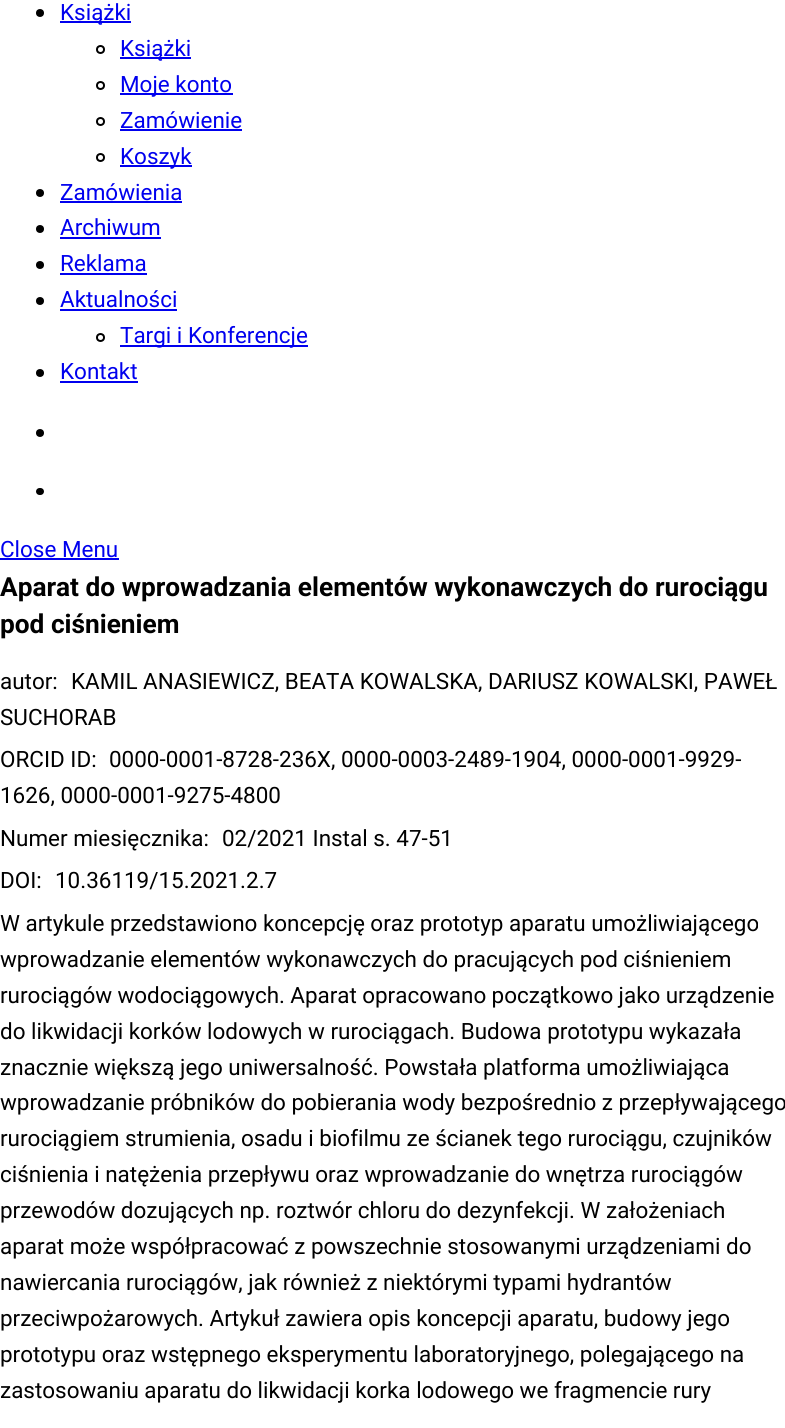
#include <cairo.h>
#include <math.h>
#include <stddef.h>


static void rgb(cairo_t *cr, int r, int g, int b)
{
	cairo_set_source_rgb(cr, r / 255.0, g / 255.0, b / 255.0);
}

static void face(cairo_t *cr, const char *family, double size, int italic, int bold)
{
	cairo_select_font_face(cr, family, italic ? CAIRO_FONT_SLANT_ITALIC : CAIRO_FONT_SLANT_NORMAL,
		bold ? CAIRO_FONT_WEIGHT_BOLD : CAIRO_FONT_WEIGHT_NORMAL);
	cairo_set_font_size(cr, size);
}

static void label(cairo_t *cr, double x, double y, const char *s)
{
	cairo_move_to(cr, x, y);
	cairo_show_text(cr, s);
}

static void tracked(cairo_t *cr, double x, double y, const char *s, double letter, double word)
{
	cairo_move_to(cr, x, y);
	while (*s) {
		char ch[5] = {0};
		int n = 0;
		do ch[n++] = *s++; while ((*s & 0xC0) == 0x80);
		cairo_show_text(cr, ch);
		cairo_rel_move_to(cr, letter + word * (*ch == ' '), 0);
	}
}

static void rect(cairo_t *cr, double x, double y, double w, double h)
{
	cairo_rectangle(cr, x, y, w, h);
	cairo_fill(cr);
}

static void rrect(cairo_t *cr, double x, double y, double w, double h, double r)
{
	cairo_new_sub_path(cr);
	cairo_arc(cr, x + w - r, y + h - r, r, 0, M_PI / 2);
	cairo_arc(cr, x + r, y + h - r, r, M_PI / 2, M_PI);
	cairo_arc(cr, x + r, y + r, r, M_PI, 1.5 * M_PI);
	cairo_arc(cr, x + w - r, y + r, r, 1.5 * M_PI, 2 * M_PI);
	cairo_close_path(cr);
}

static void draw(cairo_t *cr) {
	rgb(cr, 255, 255, 255);
	cairo_paint(cr);
	rgb(cr, 0, 0, 0);
	cairo_arc(cr, 40, 13, 4, 0, 2 * M_PI);
	cairo_fill(cr);
	rgb(cr, 0, 0, 238);
	rect(cr, 60, 21, 71, 2);
	face(cr, "Roboto", 22.45, 0, 0);
	label(cr, 60, 20, "Książki");
	cairo_new_path(cr);
	cairo_arc(cr, 100.5, 49.5, 3.5, 0, 2 * M_PI);
	rgb(cr, 0, 0, 0);
	cairo_stroke(cr);
	rgb(cr, 0, 0, 238);
	rect(cr, 120, 57, 71, 2);
	label(cr, 120, 56, "Książki");
	cairo_new_path(cr);
	cairo_arc(cr, 100.5, 85.5, 3.5, 0, 2 * M_PI);
	rgb(cr, 0, 0, 0);
	cairo_stroke(cr);
	rgb(cr, 0, 0, 238);
	rect(cr, 120, 93, 113, 2);
	label(cr, 120, 92, "Moje konto");
	cairo_new_path(cr);
	cairo_arc(cr, 100.5, 121.5, 3.5, 0, 2 * M_PI);
	rgb(cr, 0, 0, 0);
	cairo_stroke(cr);
	rgb(cr, 0, 0, 238);
	label(cr, 120, 128, "Zamówienie");
	rect(cr, 120, 129, 122, 2);
	cairo_new_path(cr);
	cairo_arc(cr, 100.5, 157.5, 3.5, 0, 2 * M_PI);
	rgb(cr, 0, 0, 0);
	cairo_stroke(cr);
	rgb(cr, 0, 0, 238);
	rect(cr, 120, 165, 72, 2);
	label(cr, 120, 164, "Koszyk");
	rgb(cr, 0, 0, 0);
	cairo_new_path(cr);
	cairo_arc(cr, 40, 193, 4, 0, 2 * M_PI);
	cairo_fill(cr);
	rgb(cr, 0, 0, 238);
	label(cr, 60, 200, "Zamówienia");
	rect(cr, 60, 201, 122, 2);
	rgb(cr, 0, 0, 0);
	cairo_new_path(cr);
	cairo_arc(cr, 40, 229, 4, 0, 2 * M_PI);
	cairo_fill(cr);
	rgb(cr, 0, 0, 238);
	label(cr, 60, 235, "Archiwum");
	rect(cr, 60, 237, 101, 2);
	rgb(cr, 0, 0, 0);
	cairo_new_path(cr);
	cairo_arc(cr, 40, 265, 4, 0, 2 * M_PI);
	cairo_fill(cr);
	rgb(cr, 0, 0, 238);
	label(cr, 60, 271, "Reklama");
	rect(cr, 60, 273, 87, 2);
	rgb(cr, 0, 0, 0);
	cairo_new_path(cr);
	cairo_arc(cr, 40, 301, 4, 0, 2 * M_PI);
	cairo_fill(cr);
	rgb(cr, 0, 0, 238);
	label(cr, 60, 307, "Aktualności");
	rect(cr, 60, 309, 117, 2);
	cairo_new_path(cr);
	cairo_arc(cr, 100.5, 337.5, 3.5, 0, 2 * M_PI);
	rgb(cr, 0, 0, 0);
	cairo_stroke(cr);
	rgb(cr, 0, 0, 238);
	rect(cr, 120, 345, 188, 2);
	label(cr, 120, 343, "Targi i Konferencje");
	rgb(cr, 0, 0, 0);
	cairo_new_path(cr);
	cairo_arc(cr, 40, 373, 4, 0, 2 * M_PI);
	cairo_fill(cr);
	rgb(cr, 0, 0, 238);
	label(cr, 60, 379, "Kontakt");
	rect(cr, 60, 381, 78, 2);
	rgb(cr, 0, 0, 0);
	cairo_new_path(cr);
	cairo_arc(cr, 40, 433, 4, 0, 2 * M_PI);
	cairo_fill(cr);
	rrect(cr, 36, 488, 8, 7, 3.5);
	cairo_fill(cr);
	rgb(cr, 0, 0, 238);
	label(cr, 0, 557, "Close Menu");
	rect(cr, 0, 558, 119, 2);
	face(cr, "Roboto", 26.25, 0, 1);
	rgb(cr, 0, 0, 0);
	label(cr, 0, 596, "Aparat do wprowadzania elementów wykonawczych do rurociągu");
	label(cr, 0, 633, "pod ciśnieniem");
	face(cr, "Roboto", 22.45, 0, 0);
	label(cr, 0, 689, "autor:");
	label(cr, 71, 689, "KAMIL ANASIEWICZ, BEATA KOWALSKA, DARIUSZ KOWALSKI, PAWEŁ");
	label(cr, 0, 725, "SUCHORAB");
	label(cr, 0, 767, "ORCID ID:");
	label(cr, 109, 767, "0000-0001-8728-236X, 0000-0003-2489-1904, 0000-0001-9929-");
	label(cr, 0, 803, "1626, 0000-0001-9275-4800");
	label(cr, 0, 846, "Numer miesięcznika:");
	label(cr, 222, 846, "02/2021 Instal s. 47-51");
	label(cr, 0, 888, "DOI:");
	label(cr, 55, 888, "10.36119/15.2021.2.7");
	label(cr, 0, 931, "W artykule przedstawiono koncepcję oraz prototyp aparatu umożliwiającego");
	label(cr, 0, 967, "wprowadzanie elementów wykonawczych do pracujących pod ciśnieniem");
	tracked(cr, 0, 1003, "rurociągów wodociągowych. Aparat opracowano początkowo jako urządzenie", 0, -0.25);
	label(cr, 0, 1039, "do likwidacji korków lodowych w rurociągach. Budowa prototypu wykazała");
	label(cr, 0, 1075, "znacznie większą jego uniwersalność. Powstała platforma umożliwiająca");
	label(cr, 0, 1110, "wprowadzanie próbników do pobierania wody bezpośrednio z przepływającego");
	label(cr, 0, 1146, "rurociągiem strumienia, osadu i biofilmu ze ścianek tego rurociągu, czujników");
	label(cr, 0, 1182, "ciśnienia i natężenia przepływu oraz wprowadzanie do wnętrza rurociągów");
	label(cr, 0, 1218, "przewodów dozujących np. roztwór chloru do dezynfekcji. W założeniach");
	label(cr, 0, 1254, "aparat może współpracować z powszechnie stosowanymi urządzeniami do");
	label(cr, 0, 1290, "nawiercania rurociągów, jak również z niektórymi typami hydrantów");
	label(cr, 0, 1326, "przeciwpożarowych. Artykuł zawiera opis koncepcji aparatu, budowy jego");
	label(cr, 0, 1362, "prototypu oraz wstępnego eksperymentu laboratoryjnego, polegającego na");
	label(cr, 0, 1398, "zastosowaniu aparatu do likwidacji korka lodowego we fragmencie rury");
}

int main(void) {
	cairo_surface_t *surface = cairo_image_surface_create(CAIRO_FORMAT_RGB24, 785, 1428);
	cairo_t *cr = cairo_create(surface);
	cairo_font_options_t *options = cairo_font_options_create();
	cairo_font_options_set_hint_metrics(options, CAIRO_HINT_METRICS_OFF);
	cairo_font_options_set_hint_style(options, CAIRO_HINT_STYLE_NONE);
	cairo_set_font_options(cr, options);
	cairo_set_miter_limit(cr, 4);
	draw(cr);
	cairo_surface_write_to_png(surface, "render.png");
	cairo_font_options_destroy(options);
	cairo_destroy(cr);
	cairo_surface_destroy(surface);
	return 0;
}
